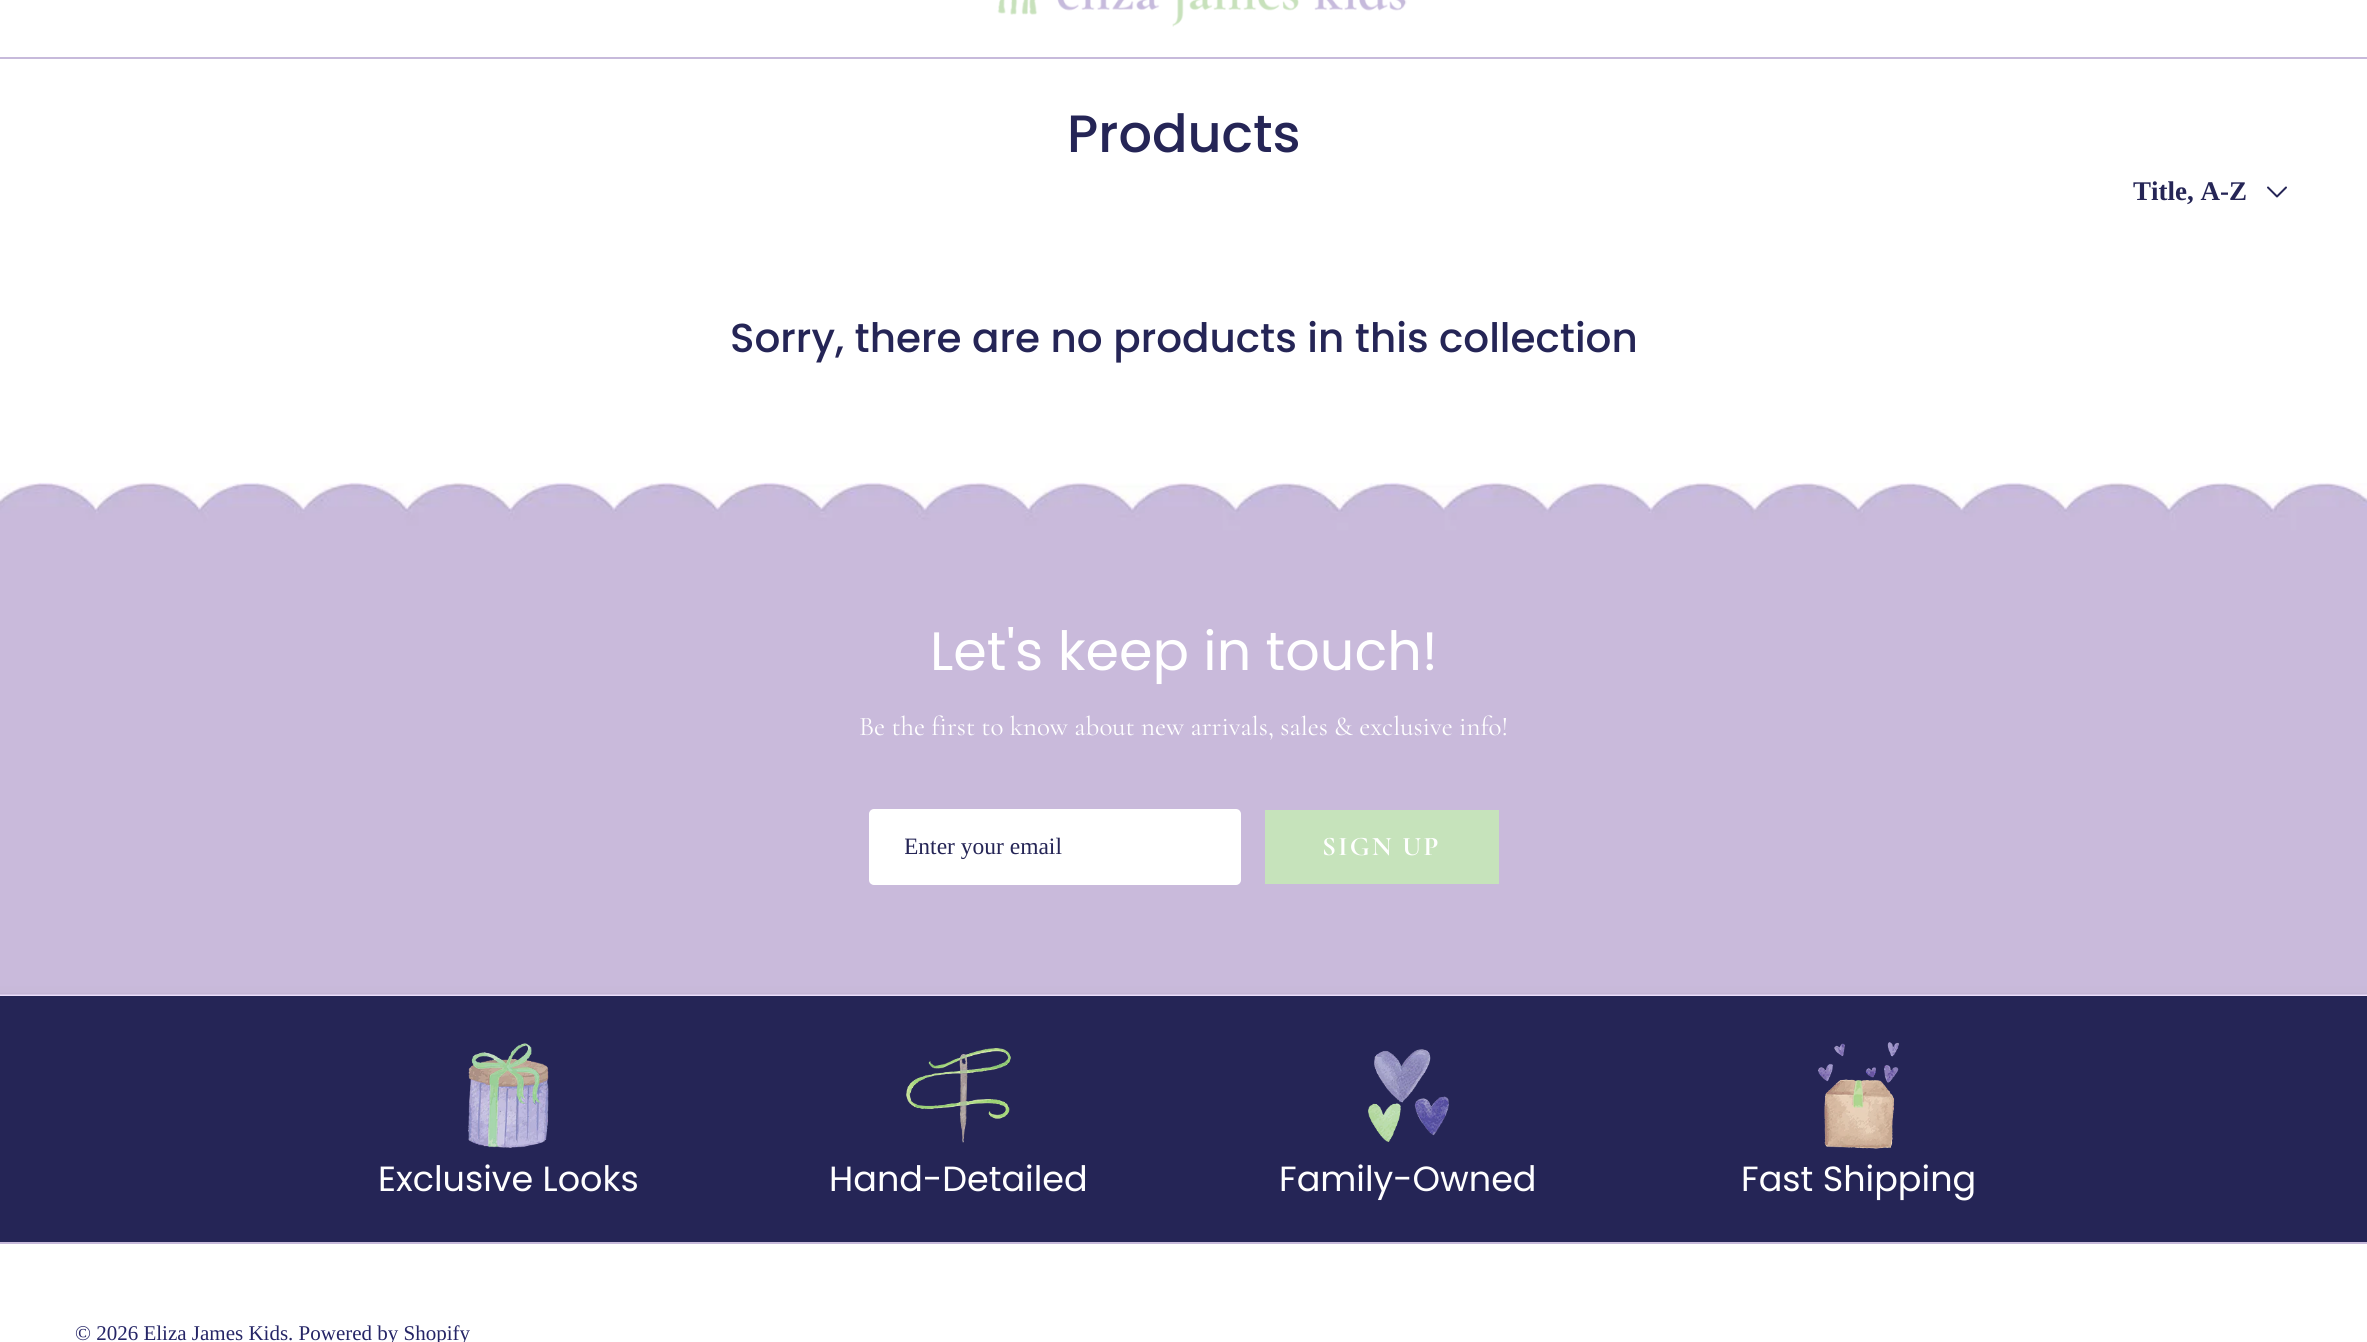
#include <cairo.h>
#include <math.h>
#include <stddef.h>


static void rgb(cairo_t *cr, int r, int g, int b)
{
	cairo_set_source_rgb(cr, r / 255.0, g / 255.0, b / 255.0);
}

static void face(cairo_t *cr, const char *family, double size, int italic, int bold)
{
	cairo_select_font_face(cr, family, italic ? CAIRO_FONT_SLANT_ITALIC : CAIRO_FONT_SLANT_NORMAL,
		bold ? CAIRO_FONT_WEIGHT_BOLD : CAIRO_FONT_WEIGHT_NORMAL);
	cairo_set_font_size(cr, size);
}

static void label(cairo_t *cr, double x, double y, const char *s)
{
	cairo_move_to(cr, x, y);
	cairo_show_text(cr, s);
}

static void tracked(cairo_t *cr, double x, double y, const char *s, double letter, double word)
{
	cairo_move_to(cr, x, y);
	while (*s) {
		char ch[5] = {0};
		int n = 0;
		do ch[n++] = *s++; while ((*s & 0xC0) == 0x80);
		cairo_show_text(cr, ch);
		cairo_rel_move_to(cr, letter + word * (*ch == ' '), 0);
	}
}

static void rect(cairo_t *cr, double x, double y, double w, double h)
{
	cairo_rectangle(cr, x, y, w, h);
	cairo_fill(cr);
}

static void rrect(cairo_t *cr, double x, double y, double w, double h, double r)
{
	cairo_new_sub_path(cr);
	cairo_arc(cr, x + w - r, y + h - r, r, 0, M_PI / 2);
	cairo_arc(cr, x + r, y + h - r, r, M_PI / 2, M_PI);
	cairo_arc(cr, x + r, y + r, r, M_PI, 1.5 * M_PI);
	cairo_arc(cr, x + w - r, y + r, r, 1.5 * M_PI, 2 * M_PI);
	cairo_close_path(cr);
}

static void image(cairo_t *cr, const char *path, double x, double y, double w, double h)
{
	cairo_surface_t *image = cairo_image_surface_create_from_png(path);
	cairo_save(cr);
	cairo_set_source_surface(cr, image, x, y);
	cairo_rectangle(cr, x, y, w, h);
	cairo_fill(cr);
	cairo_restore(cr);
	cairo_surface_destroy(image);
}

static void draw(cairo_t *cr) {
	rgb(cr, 255, 255, 255);
	cairo_paint(cr);
	rgb(cr, 199, 186, 219);
	rect(cr, 0, 57, 2367, 2);
	image(cr, "image0.png", 997, 0, 410, 27);
	face(cr, "Poppins Medium", 52.5, 0, 0);
	rgb(cr, 37, 37, 86);
	label(cr, 1067, 152, "Products");
	face(cr, "Liberation Serif", 27, 0, 1);
	label(cr, 2133, 200, "Title, A-Z");
	cairo_new_path(cr);
	cairo_move_to(cr, 2268, 187.5);
	cairo_line_to(cr, 2277, 196.5);
	cairo_line_to(cr, 2286, 187.5);
	cairo_set_line_cap(cr, CAIRO_LINE_CAP_ROUND);
	cairo_set_line_join(cr, CAIRO_LINE_JOIN_ROUND);
	cairo_stroke(cr);
	face(cr, "Poppins Medium", 40.5, 0, 0);
	label(cr, 730, 352, "Sorry, there are no products in this collection");
	image(cr, "image1.png", 0, 482, 2367, 514);
	face(cr, "Poppins", 54, 0, 0);
	rgb(cr, 255, 255, 255);
	label(cr, 930, 670, "Let's keep in touch!");
	face(cr, "Cormorant Garamond", 27, 0, 0);
	label(cr, 859, 735, "Be the first to know about new arrivals, sales & exclusive info!");
	rrect(cr, 870, 810, 370, 74, 4);
	cairo_fill_preserve(cr);
	cairo_set_line_cap(cr, CAIRO_LINE_CAP_BUTT);
	cairo_set_line_join(cr, CAIRO_LINE_JOIN_MITER);
	cairo_stroke(cr);
	cairo_save(cr);
	cairo_rectangle(cr, 905, 833, 300, 27);
	cairo_clip(cr);
	face(cr, "Liberation Serif", 23.5, 0, 0);
	rgb(cr, 37, 37, 86);
	label(cr, 904, 854, "Enter your email");
	cairo_restore(cr);
	rgb(cr, 198, 227, 187);
	rect(cr, 1265, 810, 234, 74);
	face(cr, "Cormorant Garamond", 27, 0, 1);
	rgb(cr, 255, 255, 255);
	tracked(cr, 1322, 855, "SIGN UP", 2.25, 0);
	rgb(cr, 37, 37, 86);
	rect(cr, 0, 996, 2367, 246);
	image(cr, "image2.png", 468, 1043, 81, 105);
	face(cr, "Poppins", 35, 0, 0);
	rgb(cr, 255, 255, 255);
	label(cr, 378, 1191, "Exclusive Looks");
	image(cr, "image3.png", 906, 1048, 105, 95);
	label(cr, 829, 1191, "Hand-Detailed");
	image(cr, "image4.png", 1368, 1049, 81, 93);
	label(cr, 1279, 1191, "Family-Owned");
	image(cr, "image5.png", 1818, 1042, 81, 107);
	label(cr, 1741, 1191, "Fast Shipping");
	rgb(cr, 199, 186, 219);
	rect(cr, 0, 1242, 2367, 2);
	face(cr, "Liberation Serif", 21, 0, 0);
	rgb(cr, 37, 37, 102);
	label(cr, 75, 1340, "© 2026 Eliza James Kids. Powered by Shopify");
}

int main(void) {
	cairo_surface_t *surface = cairo_image_surface_create(CAIRO_FORMAT_RGB24, 2367, 1342);
	cairo_t *cr = cairo_create(surface);
	cairo_font_options_t *options = cairo_font_options_create();
	cairo_font_options_set_hint_metrics(options, CAIRO_HINT_METRICS_OFF);
	cairo_font_options_set_hint_style(options, CAIRO_HINT_STYLE_NONE);
	cairo_set_font_options(cr, options);
	cairo_set_miter_limit(cr, 4);
	draw(cr);
	cairo_surface_write_to_png(surface, "render.png");
	cairo_font_options_destroy(options);
	cairo_destroy(cr);
	cairo_surface_destroy(surface);
	return 0;
}
